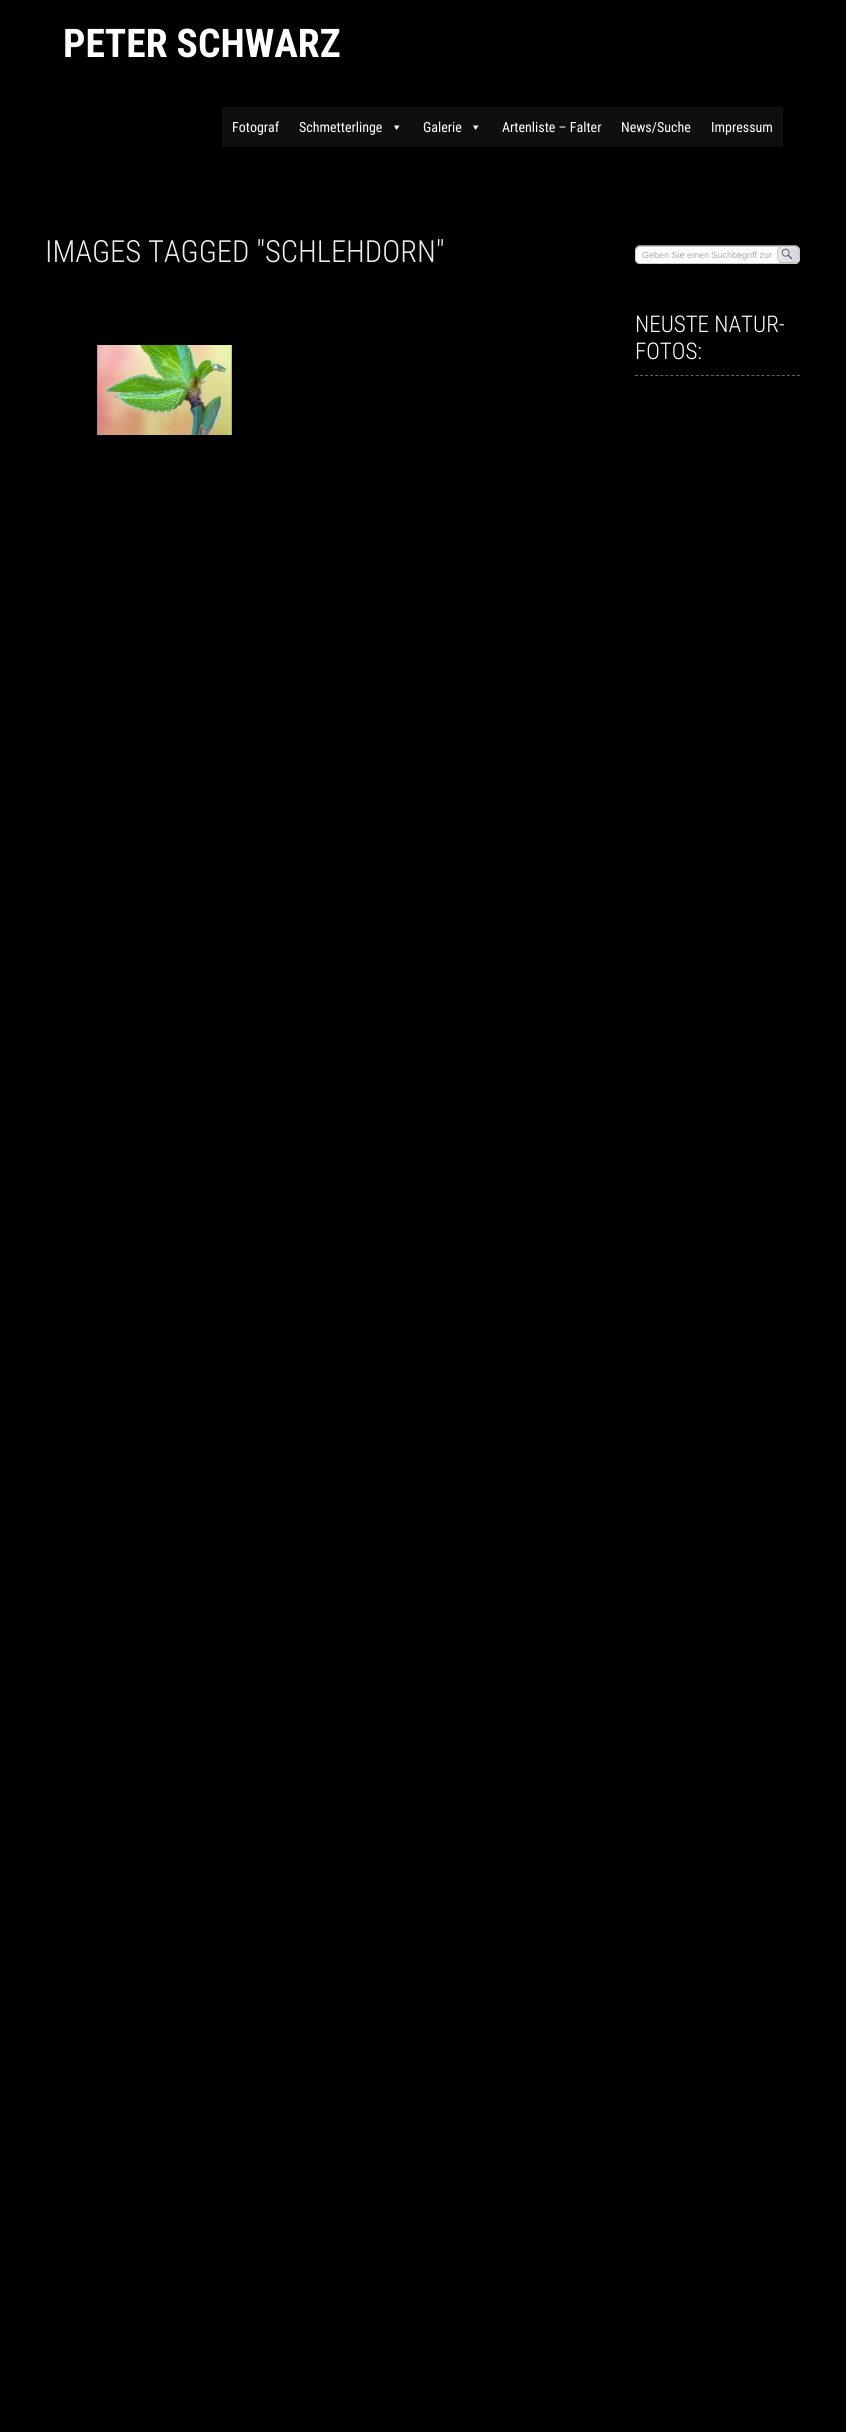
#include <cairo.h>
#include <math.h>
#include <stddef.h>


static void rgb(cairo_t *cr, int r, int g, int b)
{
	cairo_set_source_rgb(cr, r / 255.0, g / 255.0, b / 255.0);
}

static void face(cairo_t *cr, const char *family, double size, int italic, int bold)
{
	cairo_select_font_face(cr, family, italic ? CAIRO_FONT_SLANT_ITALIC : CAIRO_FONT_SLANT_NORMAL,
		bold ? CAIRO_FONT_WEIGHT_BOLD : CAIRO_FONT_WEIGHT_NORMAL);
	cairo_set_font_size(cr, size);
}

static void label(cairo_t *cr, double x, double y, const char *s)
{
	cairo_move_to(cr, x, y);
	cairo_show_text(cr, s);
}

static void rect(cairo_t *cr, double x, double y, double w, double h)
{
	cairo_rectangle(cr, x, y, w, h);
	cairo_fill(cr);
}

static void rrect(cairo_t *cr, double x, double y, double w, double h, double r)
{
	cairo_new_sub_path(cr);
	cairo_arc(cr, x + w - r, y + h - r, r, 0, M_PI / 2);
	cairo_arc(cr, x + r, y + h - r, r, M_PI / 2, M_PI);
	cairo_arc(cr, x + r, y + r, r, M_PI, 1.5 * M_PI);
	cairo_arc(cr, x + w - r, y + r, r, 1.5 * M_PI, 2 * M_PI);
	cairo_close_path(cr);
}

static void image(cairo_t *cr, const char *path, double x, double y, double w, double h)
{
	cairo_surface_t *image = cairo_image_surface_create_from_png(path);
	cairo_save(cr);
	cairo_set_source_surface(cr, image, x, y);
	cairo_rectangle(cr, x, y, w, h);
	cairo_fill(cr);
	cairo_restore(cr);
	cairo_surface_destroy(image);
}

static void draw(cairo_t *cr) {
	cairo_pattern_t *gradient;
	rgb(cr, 0, 0, 0);
	cairo_paint(cr);
	face(cr, "Roboto Condensed", 39.5, 0, 1);
	rgb(cr, 255, 255, 255);
	label(cr, 63, 57, "PETER SCHWARZ");
	rgb(cr, 15, 15, 15);
	rect(cr, 222, 107, 561, 40);
	face(cr, "Roboto Condensed", 14, 0, 0);
	rgb(cr, 255, 255, 255);
	label(cr, 232, 132, "Fotograf");
	label(cr, 299, 132, "Schmetterlinge");
	cairo_new_path(cr);
	cairo_move_to(cr, 399.5, 125.5);
	cairo_line_to(cr, 396.5, 130);
	cairo_line_to(cr, 394, 125.5);
	cairo_close_path(cr);
	cairo_fill(cr);
	label(cr, 423, 132, "Galerie");
	cairo_new_path(cr);
	cairo_move_to(cr, 478.5, 125.5);
	cairo_line_to(cr, 475.5, 130);
	cairo_line_to(cr, 473, 125.5);
	cairo_close_path(cr);
	cairo_fill(cr);
	label(cr, 502, 132, "Artenliste – Falter");
	label(cr, 621, 132, "News/Suche");
	label(cr, 711, 132, "Impressum");
	face(cr, "Roboto Condensed Light", 30.5, 0, 0);
	rgb(cr, 238, 237, 237);
	label(cr, 45, 262, "IMAGES TAGGED \"SCHLEHDORN\"");
	image(cr, "image0.png", 97, 345, 135, 90);
	rrect(cr, 635.5, 245.5, 164, 18, 4.5);
	rgb(cr, 136, 136, 136);
	cairo_set_line_width(cr, 1);
	cairo_stroke(cr);
	rgb(cr, 255, 255, 255);
	rrect(cr, 635.5, 246.5, 164, 17, 4.5);
	cairo_fill_preserve(cr);
	rgb(cr, 204, 204, 204);
	cairo_stroke(cr);
	face(cr, "Liberation Sans", 9, 0, 0);
	rgb(cr, 170, 170, 170);
	label(cr, 642, 258, "Geben Sie einen Suchbegriff zur");
	cairo_save(cr);
	rrect(cr, 777, 246, 22, 17, 5);
	cairo_clip(cr);
	gradient = cairo_pattern_create_linear(798, 255, 778, 255);
	cairo_pattern_add_color_stop_rgba(gradient, 0, 0.835, 0.835, 0.878, 1);
	cairo_pattern_add_color_stop_rgba(gradient, 1, 0.918, 0.918, 0.961, 1);
	cairo_set_source(cr, gradient);
	cairo_pattern_destroy(gradient);
	rect(cr, 778, 246, 20, 17);
	gradient = cairo_pattern_create_linear(818, 255, 798, 255);
	cairo_pattern_add_color_stop_rgba(gradient, 0, 0.835, 0.835, 0.878, 1);
	cairo_pattern_add_color_stop_rgba(gradient, 1, 0.918, 0.918, 0.961, 1);
	cairo_set_source(cr, gradient);
	cairo_pattern_destroy(gradient);
	rect(cr, 798, 246, 1, 17);
	cairo_restore(cr);
	cairo_set_source_rgba(cr, 1, 1, 1, 0.5);
	cairo_set_fill_rule(cr, CAIRO_FILL_RULE_EVEN_ODD);
	cairo_new_path(cr);
	cairo_move_to(cr, 782, 248);
	cairo_line_to(cr, 792, 248);
	cairo_curve_to(cr, 798, 248, 798, 251, 798, 256);
	cairo_line_to(cr, 797.5, 259.5);
	cairo_line_to(cr, 798, 253.5);
	cairo_curve_to(cr, 798, 245.5, 794.5, 247, 788, 247);
	cairo_curve_to(cr, 784, 247, 778, 245.5, 778, 251.5);
	cairo_curve_to(cr, 778, 249.5, 779, 248, 782, 248);
	cairo_close_path(cr);
	cairo_move_to(cr, 778, 259);
	cairo_line_to(cr, 778, 256);
	cairo_close_path(cr);
	cairo_fill(cr);
	cairo_new_path(cr);
	cairo_move_to(cr, 797, 261);
	cairo_curve_to(cr, 795, 263.5, 791, 262.5, 788, 262.5);
	cairo_curve_to(cr, 785, 262.5, 781, 263.5, 779, 261);
	rgb(cr, 187, 187, 187);
	cairo_stroke(cr);
	cairo_new_path(cr);
	cairo_move_to(cr, 779, 261);
	cairo_curve_to(cr, 777, 259.5, 777.5, 257, 777.5, 254.5);
	cairo_line_to(cr, 777.5, 250);
	cairo_curve_to(cr, 778.5, 245.5, 784.5, 246.5, 788, 246.5);
	cairo_curve_to(cr, 795, 246.5, 798.5, 245.5, 798.5, 253.5);
	cairo_curve_to(cr, 798.5, 256, 799, 259, 797, 261);
	rgb(cr, 204, 204, 204);
	cairo_stroke(cr);
	image(cr, "image1.png", 781, 248, 12, 12);
	cairo_new_path(cr);
	cairo_move_to(cr, 635, 375.5);
	cairo_line_to(cr, 800, 375.5);
	rgb(cr, 96, 98, 102);
	cairo_set_dash(cr, (double[]){3, 2.06}, 2, 0);
	cairo_stroke(cr);
	face(cr, "Roboto Condensed Light", 23, 0, 0);
	rgb(cr, 255, 255, 255);
	label(cr, 635, 332, "NEUSTE NATUR-");
	label(cr, 635, 359, "FOTOS:");
}

int main(void) {
	cairo_surface_t *surface = cairo_image_surface_create(CAIRO_FORMAT_RGB24, 846, 2432);
	cairo_t *cr = cairo_create(surface);
	cairo_font_options_t *options = cairo_font_options_create();
	cairo_font_options_set_hint_metrics(options, CAIRO_HINT_METRICS_OFF);
	cairo_font_options_set_hint_style(options, CAIRO_HINT_STYLE_NONE);
	cairo_set_font_options(cr, options);
	cairo_set_miter_limit(cr, 4);
	draw(cr);
	cairo_surface_write_to_png(surface, "render.png");
	cairo_font_options_destroy(options);
	cairo_destroy(cr);
	cairo_surface_destroy(surface);
	return 0;
}
